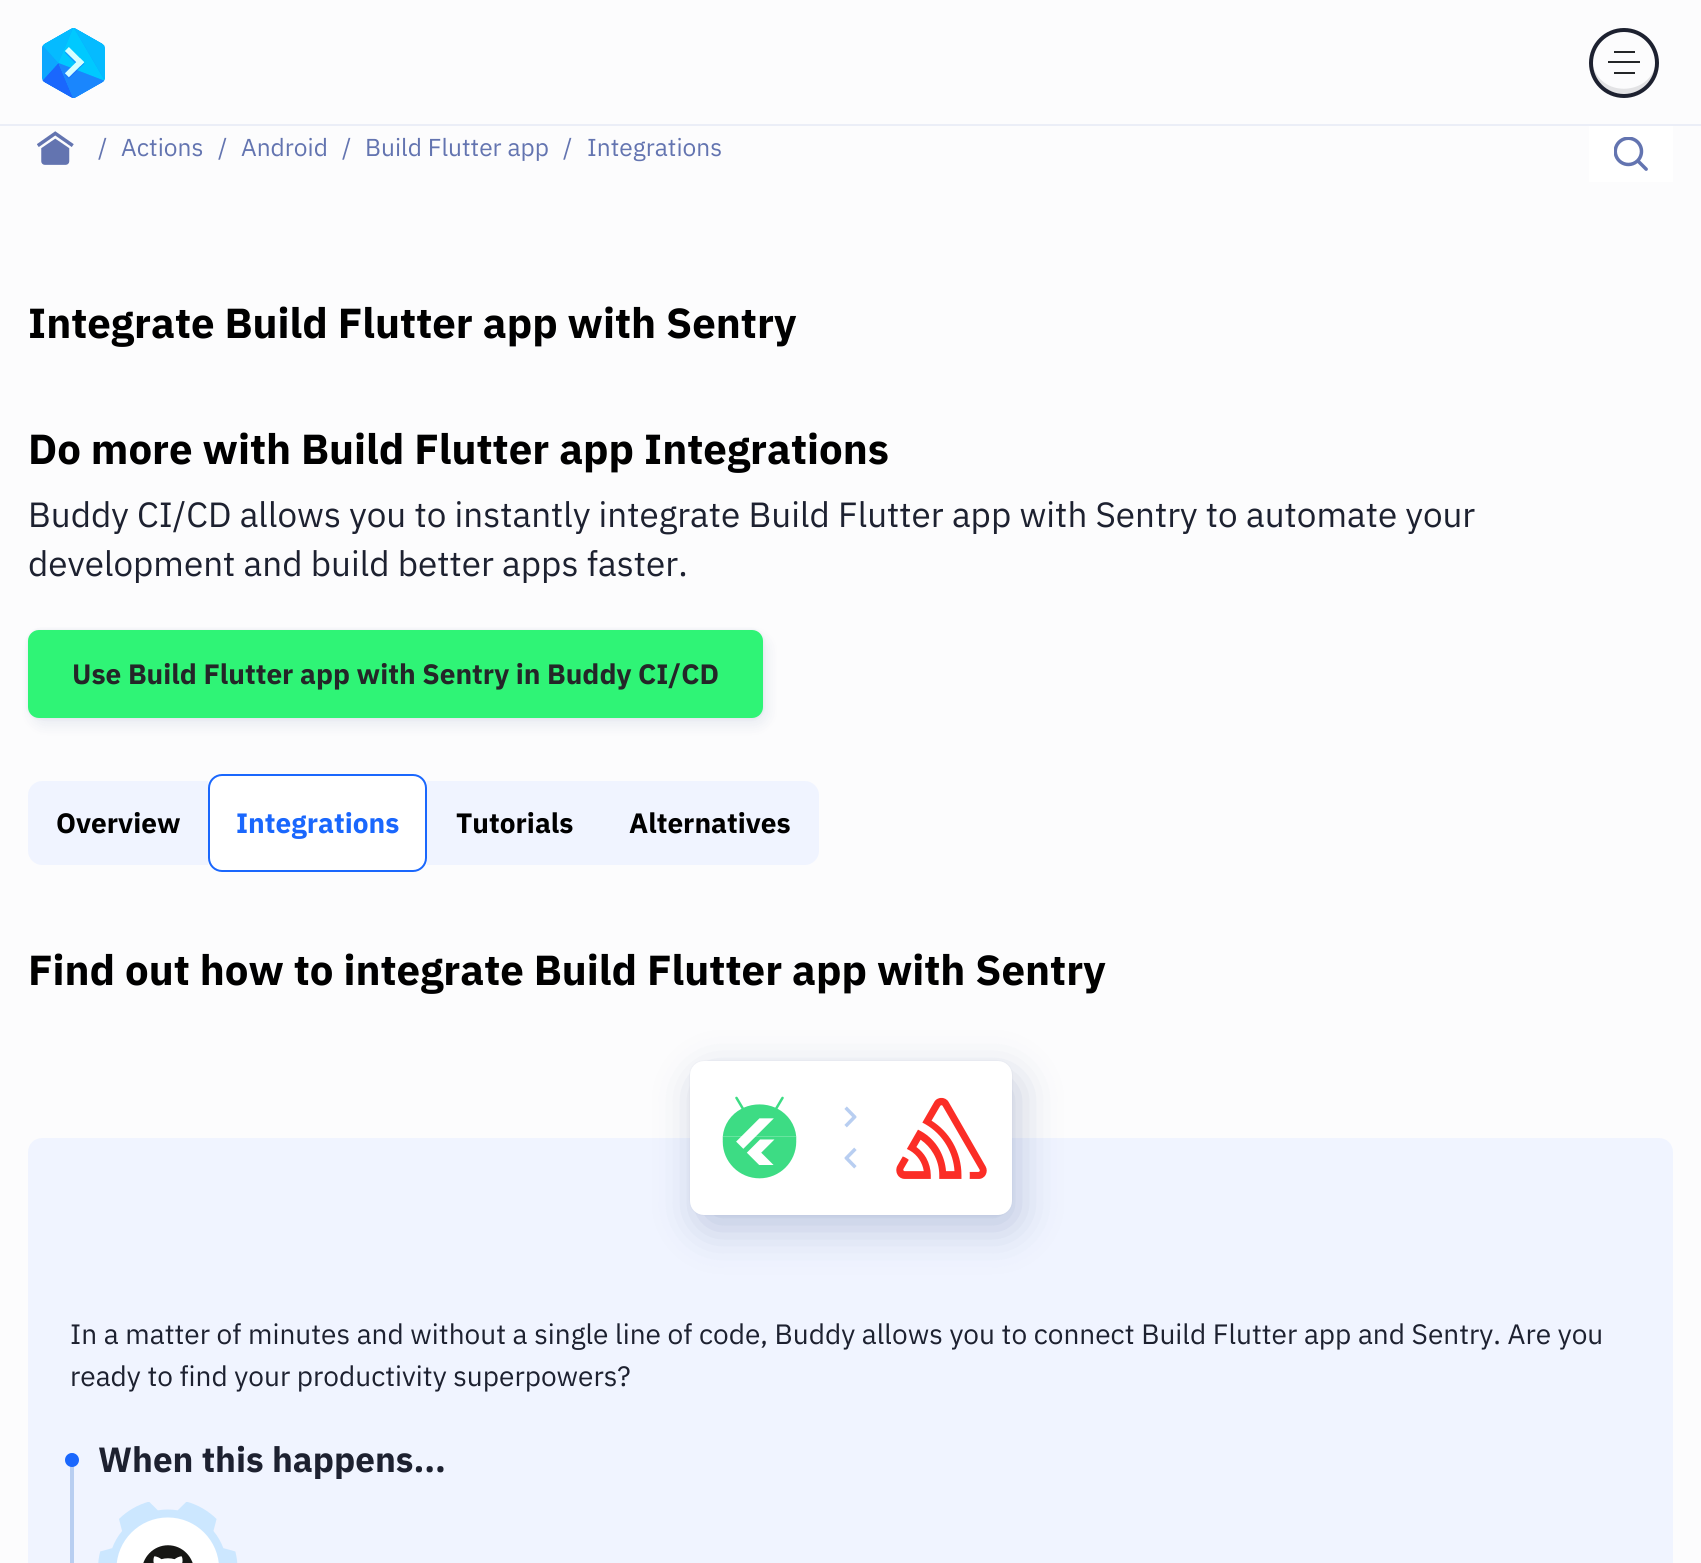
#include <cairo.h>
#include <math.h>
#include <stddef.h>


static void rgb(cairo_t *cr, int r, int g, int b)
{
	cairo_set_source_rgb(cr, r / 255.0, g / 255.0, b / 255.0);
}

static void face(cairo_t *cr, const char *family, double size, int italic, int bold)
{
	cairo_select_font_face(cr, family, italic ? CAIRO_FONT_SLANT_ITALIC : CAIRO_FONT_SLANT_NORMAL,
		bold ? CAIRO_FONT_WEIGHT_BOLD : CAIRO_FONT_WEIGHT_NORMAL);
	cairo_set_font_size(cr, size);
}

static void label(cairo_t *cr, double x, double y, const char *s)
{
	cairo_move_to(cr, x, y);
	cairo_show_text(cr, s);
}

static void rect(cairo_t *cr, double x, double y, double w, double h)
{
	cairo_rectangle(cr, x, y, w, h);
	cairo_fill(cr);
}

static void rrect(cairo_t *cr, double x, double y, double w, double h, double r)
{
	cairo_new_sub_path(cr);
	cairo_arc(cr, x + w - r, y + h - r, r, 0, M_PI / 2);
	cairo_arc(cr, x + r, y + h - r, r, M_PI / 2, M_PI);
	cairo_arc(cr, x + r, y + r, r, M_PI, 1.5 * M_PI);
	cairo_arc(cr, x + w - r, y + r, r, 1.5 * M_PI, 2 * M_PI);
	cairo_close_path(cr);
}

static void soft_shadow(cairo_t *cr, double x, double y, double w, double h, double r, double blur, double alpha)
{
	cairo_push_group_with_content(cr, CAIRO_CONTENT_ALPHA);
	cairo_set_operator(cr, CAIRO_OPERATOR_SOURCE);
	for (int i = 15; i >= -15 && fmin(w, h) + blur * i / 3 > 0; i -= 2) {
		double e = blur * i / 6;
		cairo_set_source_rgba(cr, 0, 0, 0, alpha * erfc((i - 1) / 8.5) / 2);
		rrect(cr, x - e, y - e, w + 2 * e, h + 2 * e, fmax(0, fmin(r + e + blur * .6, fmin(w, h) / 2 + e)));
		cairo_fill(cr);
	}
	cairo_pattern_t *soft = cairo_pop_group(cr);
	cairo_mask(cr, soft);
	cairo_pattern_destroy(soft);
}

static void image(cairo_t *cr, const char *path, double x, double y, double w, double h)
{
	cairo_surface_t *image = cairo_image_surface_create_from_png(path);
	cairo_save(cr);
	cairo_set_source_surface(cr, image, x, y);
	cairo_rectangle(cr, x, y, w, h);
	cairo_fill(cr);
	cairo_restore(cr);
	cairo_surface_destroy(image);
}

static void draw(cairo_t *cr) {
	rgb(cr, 252, 252, 253);
	cairo_paint(cr);
	rgb(cr, 235, 238, 247);
	rect(cr, 0, 124, 1701, 2);
	image(cr, "image0.png", 42, 28, 63, 70);
	rgb(cr, 227, 227, 229);
	cairo_new_path(cr);
	cairo_move_to(cr, 1593, 66);
	cairo_curve_to(cr, 1595, 95, 1634, 106, 1651, 81);
	cairo_curve_to(cr, 1655, 75, 1657, 68, 1656, 61);
	cairo_curve_to(cr, 1653, 95, 1602, 99, 1593, 66);
	cairo_close_path(cr);
	cairo_fill(cr);
	cairo_arc(cr, 1624, 63, 33, 0, 2 * M_PI);
	rgb(cr, 29, 33, 48);
	cairo_set_line_width(cr, 4);
	cairo_stroke(cr);
	rgb(cr, 36, 38, 40);
	rect(cr, 1608, 61, 32, 2);
	rect(cr, 1614, 51, 21, 2);
	rect(cr, 1614, 72, 21, 2);
	image(cr, "image1.png", 37, 131, 37, 34);
	face(cr, "IBM Plex Sans", 24.5, 0, 0);
	rgb(cr, 99, 116, 176);
	label(cr, 98, 156, "/");
	label(cr, 121, 156, "Actions");
	label(cr, 218, 156, "/");
	label(cr, 241, 156, "Android");
	label(cr, 342, 156, "/");
	label(cr, 365, 156, "Build Flutter app");
	label(cr, 563, 156, "/");
	label(cr, 587, 156, "Integrations");
	rgb(cr, 255, 255, 255);
	rect(cr, 1589, 126, 84, 56);
	image(cr, "image2.png", 1614, 137, 34, 34);
	face(cr, "IBM Plex Sans", 42, 0, 1);
	rgb(cr, 0, 0, 0);
	label(cr, 28, 338, "Integrate Build Flutter app with Sentry");
	label(cr, 28, 464, "Do more with Build Flutter app Integrations");
	face(cr, "IBM Plex Sans", 35, 0, 0);
	rgb(cr, 29, 33, 48);
	label(cr, 28, 527, "Buddy CI/CD allows you to instantly integrate Build Flutter app with Sentry to automate your");
	label(cr, 28, 576, "development and build better apps faster.");
	rgb(cr, 7, 39, 106);
	soft_shadow(cr, 32, 637, 735, 88, 11, 7, 0.08);
	rgb(cr, 23, 52, 110);
	soft_shadow(cr, 28, 630, 735, 88, 11, 2, 0.08);
	rgb(cr, 47, 244, 118);
	rrect(cr, 28, 630, 735, 88, 11);
	cairo_fill(cr);
	face(cr, "IBM Plex Sans", 28, 0, 1);
	rgb(cr, 36, 38, 40);
	label(cr, 72, 684, "Use Build Flutter app with Sentry in Buddy CI/CD");
	rgb(cr, 240, 244, 255);
	cairo_new_path(cr);
	cairo_move_to(cr, 42, 781);
	cairo_line_to(cr, 208, 781);
	cairo_line_to(cr, 208, 865);
	cairo_line_to(cr, 42, 865);
	cairo_curve_to(cr, 34.5, 865, 28, 858.5, 28, 851);
	cairo_line_to(cr, 28, 795);
	cairo_curve_to(cr, 28, 787.5, 34.5, 781, 42, 781);
	cairo_close_path(cr);
	cairo_fill(cr);
	rgb(cr, 0, 0, 0);
	label(cr, 56, 833, "Overview");
	rgb(cr, 255, 255, 255);
	rrect(cr, 209, 775, 217, 96, 13);
	cairo_fill_preserve(cr);
	rgb(cr, 26, 103, 253);
	cairo_set_line_width(cr, 2);
	cairo_stroke(cr);
	label(cr, 236, 833, "Integrations");
	rgb(cr, 240, 244, 255);
	rect(cr, 427, 781, 175, 84);
	rgb(cr, 0, 0, 0);
	label(cr, 456, 833, "Tutorials");
	rgb(cr, 240, 244, 255);
	cairo_new_path(cr);
	cairo_move_to(cr, 602, 781);
	cairo_line_to(cr, 805, 781);
	cairo_curve_to(cr, 812.5, 781, 819, 787.5, 819, 795);
	cairo_line_to(cr, 819, 851);
	cairo_curve_to(cr, 819, 858.5, 812.5, 865, 805, 865);
	cairo_line_to(cr, 602, 865);
	cairo_close_path(cr);
	cairo_fill(cr);
	rgb(cr, 0, 0, 0);
	label(cr, 629, 833, "Alternatives");
	face(cr, "IBM Plex Sans", 42, 0, 1);
	label(cr, 28, 985, "Find out how to integrate Build Flutter app with Sentry");
	rgb(cr, 240, 244, 255);
	rrect(cr, 28, 1138, 1645, 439, 14);
	cairo_fill(cr);
	rgb(cr, 7, 39, 106);
	soft_shadow(cr, 697, 1075, 322, 154, 14, 21, 0.22);
	rgb(cr, 23, 52, 110);
	soft_shadow(cr, 690, 1061, 322, 154, 14, 1, 0.08);
	rgb(cr, 255, 255, 255);
	rrect(cr, 690, 1061, 322, 154, 14);
	cairo_fill(cr);
	image(cr, "image3.png", 722, 1096, 75, 83);
	image(cr, "image4.png", 844, 1106, 13, 22);
	image(cr, "image5.png", 844, 1147, 13, 22);
	image(cr, "image6.png", 896, 1097, 91, 82);
	face(cr, "IBM Plex Sans", 28, 0, 0);
	rgb(cr, 29, 33, 48);
	label(cr, 70, 1344, "In a matter of minutes and without a single line of code, Buddy allows you to connect Build Flutter app and Sentry. Are you");
	label(cr, 70, 1386, "ready to find your productivity superpowers?");
	rgb(cr, 184, 206, 241);
	rect(cr, 70, 1453, 4, 110);
	rgb(cr, 26, 103, 253);
	cairo_new_path(cr);
	cairo_arc(cr, 72, 1460, 7, 0, 2 * M_PI);
	cairo_fill(cr);
	face(cr, "IBM Plex Sans", 35, 0, 1);
	rgb(cr, 29, 33, 48);
	label(cr, 98, 1472, "When this happens...");
	image(cr, "image7.png", 98, 1502, 140, 61);
	image(cr, "image8.png", 143, 1545, 50, 18);
}

int main(void) {
	cairo_surface_t *surface = cairo_image_surface_create(CAIRO_FORMAT_RGB24, 1701, 1563);
	cairo_t *cr = cairo_create(surface);
	cairo_font_options_t *options = cairo_font_options_create();
	cairo_font_options_set_hint_metrics(options, CAIRO_HINT_METRICS_OFF);
	cairo_font_options_set_hint_style(options, CAIRO_HINT_STYLE_NONE);
	cairo_set_font_options(cr, options);
	cairo_set_miter_limit(cr, 4);
	draw(cr);
	cairo_surface_write_to_png(surface, "render.png");
	cairo_font_options_destroy(options);
	cairo_destroy(cr);
	cairo_surface_destroy(surface);
	return 0;
}
